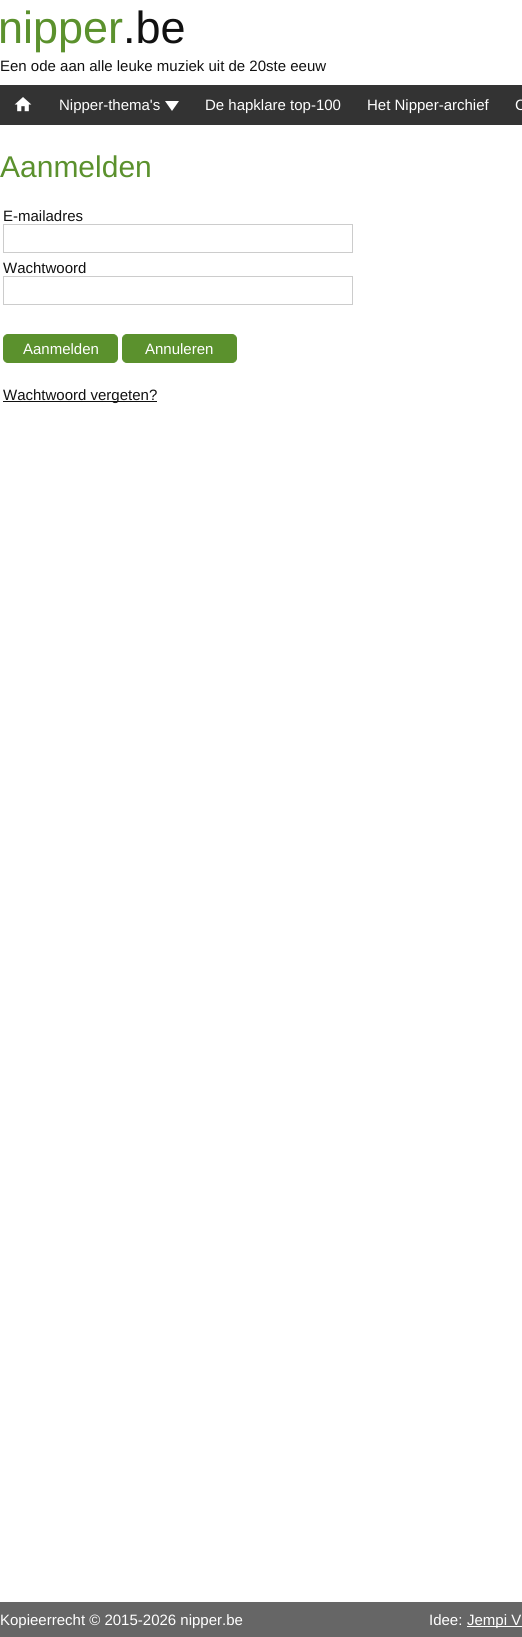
#include <cairo.h>
#include <math.h>
#include <stddef.h>


static void rgb(cairo_t *cr, int r, int g, int b)
{
	cairo_set_source_rgb(cr, r / 255.0, g / 255.0, b / 255.0);
}

static void face(cairo_t *cr, const char *family, double size, int italic, int bold)
{
	cairo_select_font_face(cr, family, italic ? CAIRO_FONT_SLANT_ITALIC : CAIRO_FONT_SLANT_NORMAL,
		bold ? CAIRO_FONT_WEIGHT_BOLD : CAIRO_FONT_WEIGHT_NORMAL);
	cairo_set_font_size(cr, size);
}

static void label(cairo_t *cr, double x, double y, const char *s)
{
	cairo_move_to(cr, x, y);
	cairo_show_text(cr, s);
}

static void rect(cairo_t *cr, double x, double y, double w, double h)
{
	cairo_rectangle(cr, x, y, w, h);
	cairo_fill(cr);
}

static void rrect(cairo_t *cr, double x, double y, double w, double h, double r)
{
	cairo_new_sub_path(cr);
	cairo_arc(cr, x + w - r, y + h - r, r, 0, M_PI / 2);
	cairo_arc(cr, x + r, y + h - r, r, M_PI / 2, M_PI);
	cairo_arc(cr, x + r, y + r, r, M_PI, 1.5 * M_PI);
	cairo_arc(cr, x + w - r, y + r, r, 1.5 * M_PI, 2 * M_PI);
	cairo_close_path(cr);
}

static void image(cairo_t *cr, const char *path, double x, double y, double w, double h)
{
	cairo_surface_t *image = cairo_image_surface_create_from_png(path);
	cairo_save(cr);
	cairo_set_source_surface(cr, image, x, y);
	cairo_rectangle(cr, x, y, w, h);
	cairo_fill(cr);
	cairo_restore(cr);
	cairo_surface_destroy(image);
}

static void draw(cairo_t *cr) {
	rgb(cr, 255, 255, 255);
	cairo_paint(cr);
	face(cr, "Liberation Sans", 45, 0, 0);
	rgb(cr, 91, 145, 45);
	label(cr, -2, 43, "nipper");
	rgb(cr, 17, 17, 17);
	label(cr, 123, 43, ".be");
	face(cr, "Liberation Sans", 15, 0, 0);
	label(cr, 0, 71, "Een ode aan alle leuke muziek uit de 20ste eeuw");
	rgb(cr, 51, 51, 51);
	rect(cr, 0, 85, 522, 40);
	image(cr, "image0.png", 14, 97, 18, 15);
	rgb(cr, 255, 255, 255);
	label(cr, 59, 110, "Nipper-thema's");
	cairo_new_path(cr);
	cairo_move_to(cr, 165, 101);
	cairo_line_to(cr, 179, 101);
	cairo_line_to(cr, 172, 111);
	cairo_close_path(cr);
	cairo_fill(cr);
	label(cr, 205, 110, "De hapklare top-100");
	label(cr, 367, 110, "Het Nipper-archief");
	label(cr, 515, 110, "C");
	face(cr, "Liberation Sans", 30, 0, 0);
	rgb(cr, 91, 145, 45);
	label(cr, 0, 177, "Aanmelden");
	face(cr, "Liberation Sans", 15, 0, 0);
	rgb(cr, 17, 17, 17);
	label(cr, 3, 221, "E-mailadres");
	cairo_rectangle(cr, 3.5, 224.5, 349, 28);
	rgb(cr, 204, 204, 204);
	cairo_set_line_width(cr, 1);
	cairo_stroke(cr);
	rgb(cr, 17, 17, 17);
	label(cr, 3, 273, "Wachtwoord");
	cairo_rectangle(cr, 3.5, 276.5, 349, 28);
	rgb(cr, 204, 204, 204);
	cairo_stroke(cr);
	rgb(cr, 91, 145, 45);
	rrect(cr, 3.5, 334.5, 114, 28, 4.5);
	cairo_fill_preserve(cr);
	cairo_stroke(cr);
	rgb(cr, 255, 255, 255);
	label(cr, 23, 354, "Aanmelden");
	rgb(cr, 91, 145, 45);
	rrect(cr, 122.5, 334.5, 114, 28, 4.5);
	cairo_fill_preserve(cr);
	cairo_stroke(cr);
	rgb(cr, 255, 255, 255);
	label(cr, 145, 354, "Annuleren");
	rgb(cr, 17, 17, 17);
	rect(cr, 3, 401, 154, 1);
	label(cr, 3, 400, "Wachtwoord vergeten?");
	rgb(cr, 102, 102, 102);
	rect(cr, 0, 1602, 522, 35);
	rgb(cr, 255, 255, 255);
	label(cr, 0, 1625, "Kopieerrecht © 2015-2026 nipper.be");
	label(cr, 429, 1625, "Idee:");
	rect(cr, 467, 1626, 55, 1);
	label(cr, 467, 1625, "Jempi V");
}

int main(void) {
	cairo_surface_t *surface = cairo_image_surface_create(CAIRO_FORMAT_RGB24, 522, 1637);
	cairo_t *cr = cairo_create(surface);
	cairo_font_options_t *options = cairo_font_options_create();
	cairo_font_options_set_hint_metrics(options, CAIRO_HINT_METRICS_OFF);
	cairo_font_options_set_hint_style(options, CAIRO_HINT_STYLE_NONE);
	cairo_set_font_options(cr, options);
	cairo_set_miter_limit(cr, 4);
	draw(cr);
	cairo_surface_write_to_png(surface, "render.png");
	cairo_font_options_destroy(options);
	cairo_destroy(cr);
	cairo_surface_destroy(surface);
	return 0;
}
